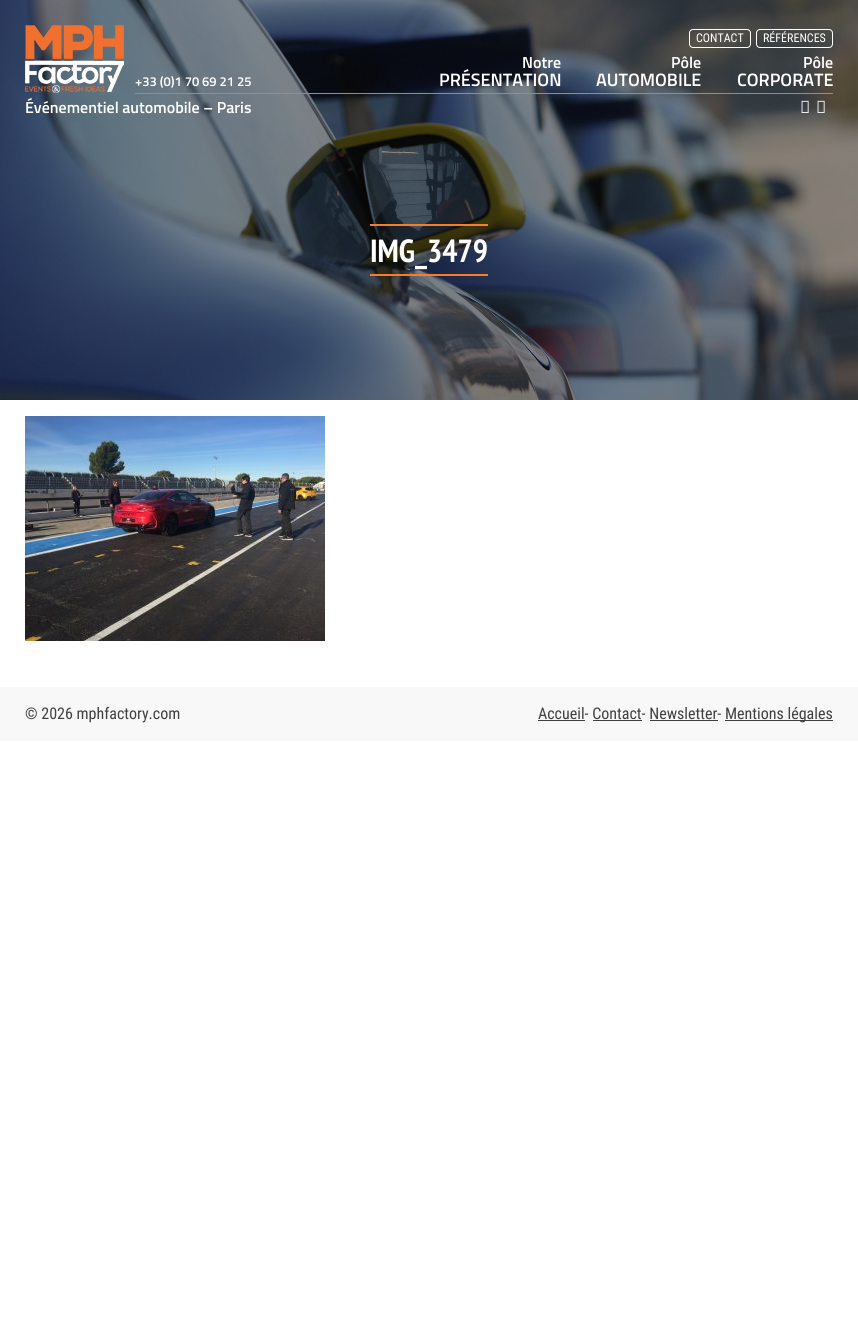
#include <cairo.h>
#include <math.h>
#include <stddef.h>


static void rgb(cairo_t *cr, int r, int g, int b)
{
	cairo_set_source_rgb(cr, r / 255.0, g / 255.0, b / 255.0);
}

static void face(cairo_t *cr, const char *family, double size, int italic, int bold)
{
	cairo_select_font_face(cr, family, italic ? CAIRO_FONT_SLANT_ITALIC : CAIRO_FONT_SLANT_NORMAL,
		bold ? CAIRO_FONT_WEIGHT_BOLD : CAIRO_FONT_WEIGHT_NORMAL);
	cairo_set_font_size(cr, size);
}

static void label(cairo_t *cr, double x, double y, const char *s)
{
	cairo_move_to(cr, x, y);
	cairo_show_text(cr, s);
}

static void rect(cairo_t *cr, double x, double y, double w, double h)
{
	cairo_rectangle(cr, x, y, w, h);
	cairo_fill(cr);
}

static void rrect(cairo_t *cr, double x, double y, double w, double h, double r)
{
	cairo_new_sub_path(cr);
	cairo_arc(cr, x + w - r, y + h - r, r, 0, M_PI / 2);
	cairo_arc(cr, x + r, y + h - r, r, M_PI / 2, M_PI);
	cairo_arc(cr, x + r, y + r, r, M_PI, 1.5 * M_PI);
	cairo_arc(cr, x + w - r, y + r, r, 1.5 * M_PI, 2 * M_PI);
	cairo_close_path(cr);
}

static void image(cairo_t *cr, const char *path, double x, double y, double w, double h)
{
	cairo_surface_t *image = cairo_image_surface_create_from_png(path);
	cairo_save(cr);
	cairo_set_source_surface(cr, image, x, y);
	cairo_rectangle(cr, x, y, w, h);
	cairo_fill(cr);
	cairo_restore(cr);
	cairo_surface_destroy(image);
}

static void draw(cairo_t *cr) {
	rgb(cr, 255, 255, 255);
	cairo_paint(cr);
	image(cr, "image3.png", 0, 0, 858, 400);
	image(cr, "image0.png", 25, 25, 99, 68);
	rrect(cr, 689.5, 29.5, 61, 18, 3.5);
	rgb(cr, 255, 255, 255);
	cairo_set_line_width(cr, 1);
	cairo_stroke(cr);
	face(cr, "Roboto Condensed", 12, 0, 0);
	label(cr, 696, 42, "CONTACT");
	rrect(cr, 756.5, 29.5, 76, 18, 3.5);
	cairo_stroke(cr);
	label(cr, 763, 42, "RÉFÉRENCES");
	rgb(cr, 240, 112, 47);
	rect(cr, 135, 93, 698, 1);
	face(cr, "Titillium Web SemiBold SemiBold", 13, 0, 0);
	rgb(cr, 255, 255, 255);
	label(cr, 135, 86, "+33 (0)1 70 69 21 25");
	face(cr, "Titillium Web SemiBold SemiBold", 16, 0, 0);
	label(cr, 522, 68, "Notre");
	face(cr, "Titillium Web SemiBold SemiBold", 18, 0, 0);
	label(cr, 439, 86, "PRÉSENTATION");
	face(cr, "Titillium Web SemiBold SemiBold", 16, 0, 0);
	label(cr, 671, 68, "Pôle");
	face(cr, "Titillium Web SemiBold SemiBold", 18, 0, 0);
	label(cr, 596, 86, "AUTOMOBILE");
	face(cr, "Titillium Web SemiBold SemiBold", 16, 0, 0);
	label(cr, 803, 68, "Pôle");
	face(cr, "Titillium Web SemiBold SemiBold", 18, 0, 0);
	label(cr, 737, 86, "CORPORATE");
	face(cr, "Titillium Web SemiBold SemiBold", 16, 0, 0);
	label(cr, 25, 113, "Événementiel automobile – Paris");
	image(cr, "image1.png", 801, 100, 8, 13);
	image(cr, "image2.png", 817, 100, 8, 13);
	rgb(cr, 248, 125, 39);
	rect(cr, 370, 224, 118, 2);
	rect(cr, 370, 274, 118, 2);
	face(cr, "PT Sans Narrow", 32, 0, 1);
	rgb(cr, 255, 255, 255);
	label(cr, 370, 262, "IMG_3479");
	image(cr, "image4.png", 25, 416, 300, 225);
	rgb(cr, 248, 248, 248);
	rect(cr, 0, 687, 858, 54);
	face(cr, "Roboto Condensed", 16, 0, 0);
	rgb(cr, 64, 64, 64);
	label(cr, 25, 719, "© 2026 mphfactory.com");
	label(cr, 538, 719, "Accueil- Contact- Newsletter-");
	rect(cr, 538, 720, 47, 1);
	rect(cr, 725, 720, 108, 1);
	label(cr, 725, 719, "Mentions légales");
	rect(cr, 593, 720, 49, 1);
	rect(cr, 650, 720, 68, 1);
}

int main(void) {
	cairo_surface_t *surface = cairo_image_surface_create(CAIRO_FORMAT_RGB24, 858, 1318);
	cairo_t *cr = cairo_create(surface);
	cairo_font_options_t *options = cairo_font_options_create();
	cairo_font_options_set_hint_metrics(options, CAIRO_HINT_METRICS_OFF);
	cairo_font_options_set_hint_style(options, CAIRO_HINT_STYLE_NONE);
	cairo_set_font_options(cr, options);
	cairo_set_miter_limit(cr, 4);
	draw(cr);
	cairo_surface_write_to_png(surface, "render.png");
	cairo_font_options_destroy(options);
	cairo_destroy(cr);
	cairo_surface_destroy(surface);
	return 0;
}
